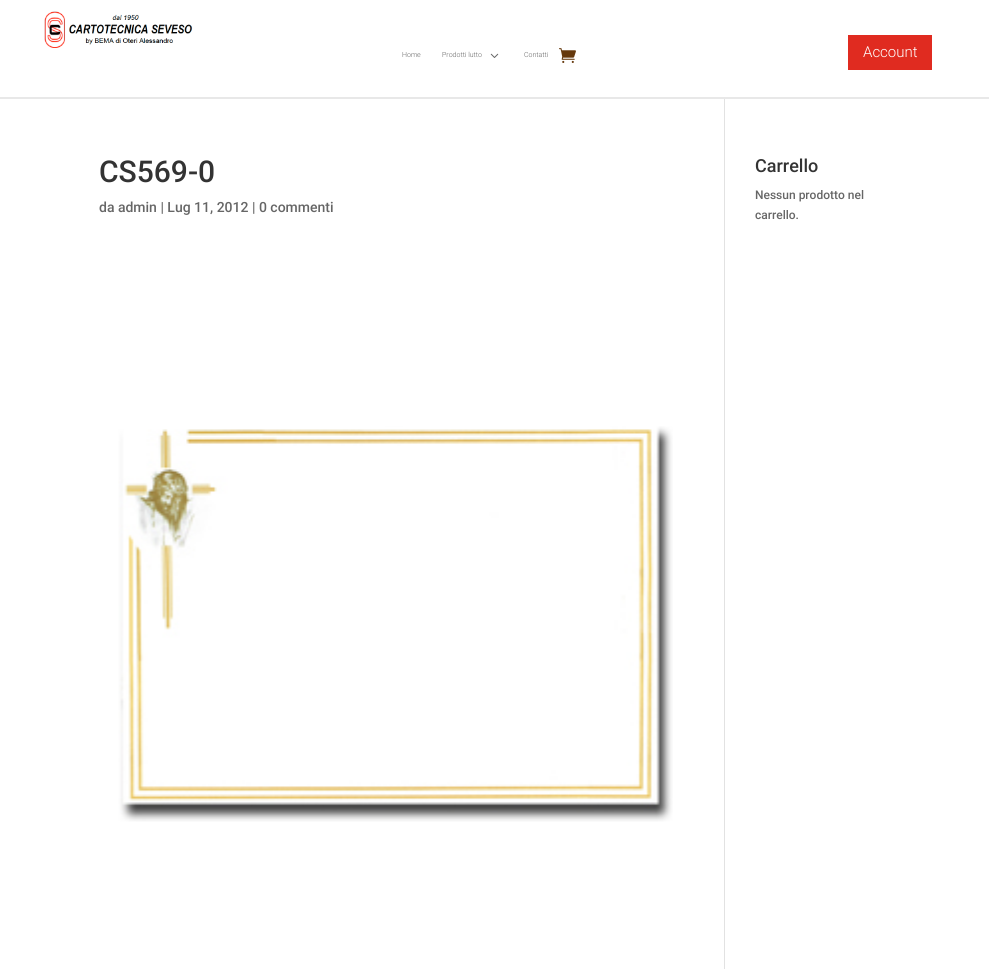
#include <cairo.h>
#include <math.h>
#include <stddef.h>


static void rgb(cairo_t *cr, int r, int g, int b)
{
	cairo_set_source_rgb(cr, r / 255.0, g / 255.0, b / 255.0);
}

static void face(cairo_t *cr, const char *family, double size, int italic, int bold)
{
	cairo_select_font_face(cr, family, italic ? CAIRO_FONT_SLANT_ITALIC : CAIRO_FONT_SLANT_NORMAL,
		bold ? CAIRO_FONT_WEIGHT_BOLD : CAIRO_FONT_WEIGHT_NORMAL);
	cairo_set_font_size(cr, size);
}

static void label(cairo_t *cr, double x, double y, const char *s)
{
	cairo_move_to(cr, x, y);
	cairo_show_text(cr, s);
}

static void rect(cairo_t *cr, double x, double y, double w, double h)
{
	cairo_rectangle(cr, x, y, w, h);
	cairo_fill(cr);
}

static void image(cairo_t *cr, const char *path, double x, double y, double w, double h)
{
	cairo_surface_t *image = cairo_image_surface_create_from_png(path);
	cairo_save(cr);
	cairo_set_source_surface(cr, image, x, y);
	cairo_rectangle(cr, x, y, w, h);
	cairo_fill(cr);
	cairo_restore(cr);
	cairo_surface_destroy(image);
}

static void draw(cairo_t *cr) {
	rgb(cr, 255, 255, 255);
	cairo_paint(cr);
	rgb(cr, 232, 232, 232);
	rect(cr, 0, 97, 989, 2);
	image(cr, "image0.png", 44, 11, 149, 37);
	face(cr, "Roboto Light", 7, 0, 0);
	rgb(cr, 102, 102, 102);
	label(cr, 402, 57, "Home");
	label(cr, 442, 57, "Prodotti lutto");
	image(cr, "image1.png", 490, 53, 9, 5);
	label(cr, 524, 57, "Contatti");
	image(cr, "image2.png", 559, 48, 17, 15);
	rgb(cr, 224, 43, 32);
	rect(cr, 848, 35, 84, 35);
	face(cr, "Roboto Light", 15, 0, 0);
	rgb(cr, 255, 255, 255);
	label(cr, 863, 57, "Account");
	rgb(cr, 226, 226, 226);
	rect(cr, 724, 99, 1, 870);
	face(cr, "Roboto Medium", 30, 0, 0);
	rgb(cr, 51, 51, 51);
	label(cr, 99, 182, "CS569-0");
	face(cr, "Roboto Medium", 14, 0, 0);
	rgb(cr, 102, 102, 102);
	label(cr, 99, 212, "da admin | Lug 11, 2012 | 0 commenti");
	image(cr, "image3.png", 118, 426, 555, 396);
	face(cr, "Roboto Medium", 18, 0, 0);
	rgb(cr, 51, 51, 51);
	label(cr, 755, 172, "Carrello");
	face(cr, "Roboto Medium", 12, 0, 0);
	rgb(cr, 102, 102, 102);
	label(cr, 755, 199, "Nessun prodotto nel");
	label(cr, 755, 219, "carrello.");
}

int main(void) {
	cairo_surface_t *surface = cairo_image_surface_create(CAIRO_FORMAT_RGB24, 989, 969);
	cairo_t *cr = cairo_create(surface);
	cairo_font_options_t *options = cairo_font_options_create();
	cairo_font_options_set_hint_metrics(options, CAIRO_HINT_METRICS_OFF);
	cairo_font_options_set_hint_style(options, CAIRO_HINT_STYLE_NONE);
	cairo_set_font_options(cr, options);
	cairo_set_miter_limit(cr, 4);
	draw(cr);
	cairo_surface_write_to_png(surface, "render.png");
	cairo_font_options_destroy(options);
	cairo_destroy(cr);
	cairo_surface_destroy(surface);
	return 0;
}
